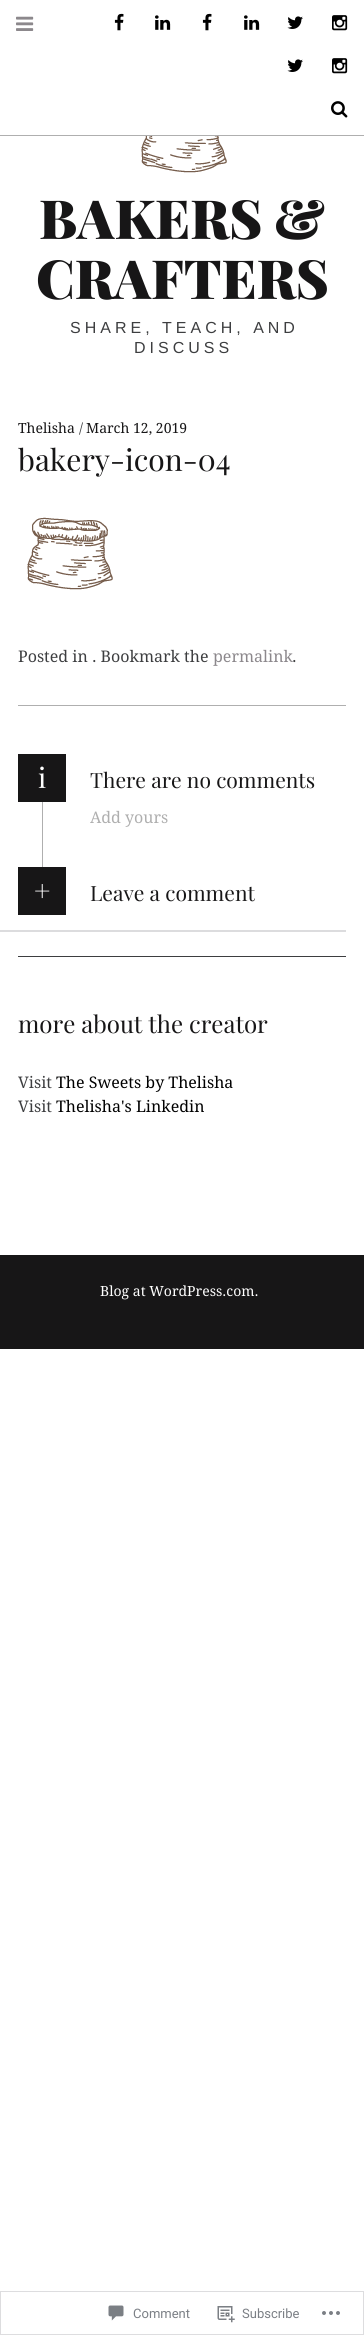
#include <cairo.h>
#include <math.h>
#include <stddef.h>


static void rgb(cairo_t *cr, int r, int g, int b)
{
	cairo_set_source_rgb(cr, r / 255.0, g / 255.0, b / 255.0);
}

static void face(cairo_t *cr, const char *family, double size, int italic, int bold)
{
	cairo_select_font_face(cr, family, italic ? CAIRO_FONT_SLANT_ITALIC : CAIRO_FONT_SLANT_NORMAL,
		bold ? CAIRO_FONT_WEIGHT_BOLD : CAIRO_FONT_WEIGHT_NORMAL);
	cairo_set_font_size(cr, size);
}

static void label(cairo_t *cr, double x, double y, const char *s)
{
	cairo_move_to(cr, x, y);
	cairo_show_text(cr, s);
}

static void tracked(cairo_t *cr, double x, double y, const char *s, double letter, double word)
{
	cairo_move_to(cr, x, y);
	while (*s) {
		char ch[5] = {0};
		int n = 0;
		do ch[n++] = *s++; while ((*s & 0xC0) == 0x80);
		cairo_show_text(cr, ch);
		cairo_rel_move_to(cr, letter + word * (*ch == ' '), 0);
	}
}

static void rect(cairo_t *cr, double x, double y, double w, double h)
{
	cairo_rectangle(cr, x, y, w, h);
	cairo_fill(cr);
}

static void image(cairo_t *cr, const char *path, double x, double y, double w, double h)
{
	cairo_surface_t *image = cairo_image_surface_create_from_png(path);
	cairo_save(cr);
	cairo_set_source_surface(cr, image, x, y);
	cairo_rectangle(cr, x, y, w, h);
	cairo_fill(cr);
	cairo_restore(cr);
	cairo_surface_destroy(image);
}

static void draw(cairo_t *cr) {
	rgb(cr, 255, 255, 255);
	cairo_paint(cr);
	rgb(cr, 175, 175, 175);
	rect(cr, 0, 135, 364, 1);
	image(cr, "image0.png", 114, 13, 10, 18);
	image(cr, "image1.png", 155, 15, 16, 15);
	image(cr, "image0.png", 202, 13, 10, 18);
	image(cr, "image1.png", 244, 15, 16, 15);
	image(cr, "image2.png", 287, 16, 16, 13);
	image(cr, "image3.png", 332, 15, 16, 16);
	image(cr, "image2.png", 287, 59, 16, 13);
	image(cr, "image3.png", 332, 58, 16, 16);
	image(cr, "image4.png", 331, 101, 17, 17);
	image(cr, "image5.png", 16, 16, 18, 15);
	image(cr, "image6.png", 141, 136, 86, 37);
	face(cr, "Playfair Display Black", 54, 0, 0);
	rgb(cr, 23, 22, 23);
	label(cr, 39, 239, "BAKERS &");
	label(cr, 36, 299, "CRAFTERS");
	face(cr, "Liberation Sans", 16, 0, 0);
	rgb(cr, 61, 62, 64);
	tracked(cr, 70, 333, "SHARE, TEACH, AND", 4, 0);
	tracked(cr, 134, 353, "DISCUSS", 4, 0);
	face(cr, "Droid Serif", 14, 0, 0);
	rgb(cr, 23, 22, 23);
	label(cr, 18, 433, "Thelisha");
	rgb(cr, 61, 62, 64);
	label(cr, 79, 433, "/");
	rgb(cr, 23, 22, 23);
	label(cr, 86, 433, "March 12, 2019");
	face(cr, "Playfair Display", 30, 0, 0);
	label(cr, 18, 471, "bakery-icon-04");
	image(cr, "image7.png", 27, 517, 86, 73);
	face(cr, "Droid Serif", 16, 0, 0);
	rgb(cr, 61, 62, 64);
	label(cr, 18, 662, "Posted in . Bookmark the");
	rgb(cr, 140, 136, 140);
	label(cr, 213, 662, "permalink");
	rgb(cr, 61, 62, 64);
	label(cr, 292, 662, ".");
	rgb(cr, 175, 175, 175);
	rect(cr, 18, 705, 328, 1);
	rgb(cr, 23, 22, 23);
	rect(cr, 18, 754, 48, 48);
	face(cr, "Playfair Display", 28, 0, 0);
	rgb(cr, 255, 255, 255);
	label(cr, 38, 788, "i");
	face(cr, "Playfair Display", 21, 0, 0);
	rgb(cr, 23, 22, 23);
	label(cr, 90, 788, "There are no comments");
	face(cr, "Droid Serif", 16, 0, 0);
	rgb(cr, 175, 175, 175);
	label(cr, 90, 823, "Add yours");
	rect(cr, 42, 802, 1, 65);
	rgb(cr, 23, 22, 23);
	rect(cr, 18, 867, 48, 48);
	face(cr, "Playfair Display", 28, 0, 0);
	rgb(cr, 255, 255, 255);
	label(cr, 34, 901, "+");
	face(cr, "Playfair Display", 21, 0, 0);
	rgb(cr, 23, 22, 23);
	label(cr, 90, 901, "Leave a comment");
	rgb(cr, 220, 220, 222);
	rect(cr, 0, 930, 346, 2);
	rgb(cr, 61, 62, 64);
	rect(cr, 18, 956, 328, 1);
	face(cr, "Playfair Display", 24, 0, 0);
	rgb(cr, 23, 22, 23);
	label(cr, 18, 1033, "more about the creator");
	face(cr, "Droid Serif", 16, 0, 0);
	rgb(cr, 61, 62, 64);
	label(cr, 18, 1088, "Visit");
	rgb(cr, 0, 0, 0);
	label(cr, 56, 1088, "The Sweets by Thelisha");
	rgb(cr, 61, 62, 64);
	label(cr, 18, 1112, "Visit");
	rgb(cr, 0, 0, 0);
	label(cr, 56, 1112, "Thelisha's Linkedin");
	rgb(cr, 23, 22, 23);
	rect(cr, 0, 1255, 364, 94);
	face(cr, "Droid Serif", 14, 0, 0);
	rgb(cr, 255, 255, 255);
	label(cr, 100, 1296, "Blog at WordPress.com.");
	cairo_rectangle(cr, 0.5, 2291.5, 363, 43);
	rgb(cr, 221, 221, 223);
	cairo_set_line_width(cr, 1);
	cairo_stroke(cr);
	image(cr, "image8.png", 108, 2305, 16, 16);
	face(cr, "Roboto", 13, 0, 0);
	rgb(cr, 123, 127, 133);
	label(cr, 133, 2318, "Comment");
	image(cr, "image9.png", 217, 2306, 18, 17);
	label(cr, 242, 2318, "Subscribe");
	image(cr, "image10.png", 322, 2311, 18, 4);
}

int main(void) {
	cairo_surface_t *surface = cairo_image_surface_create(CAIRO_FORMAT_RGB24, 364, 2335);
	cairo_t *cr = cairo_create(surface);
	cairo_font_options_t *options = cairo_font_options_create();
	cairo_font_options_set_hint_metrics(options, CAIRO_HINT_METRICS_OFF);
	cairo_font_options_set_hint_style(options, CAIRO_HINT_STYLE_NONE);
	cairo_set_font_options(cr, options);
	cairo_set_miter_limit(cr, 4);
	draw(cr);
	cairo_surface_write_to_png(surface, "render.png");
	cairo_font_options_destroy(options);
	cairo_destroy(cr);
	cairo_surface_destroy(surface);
	return 0;
}
